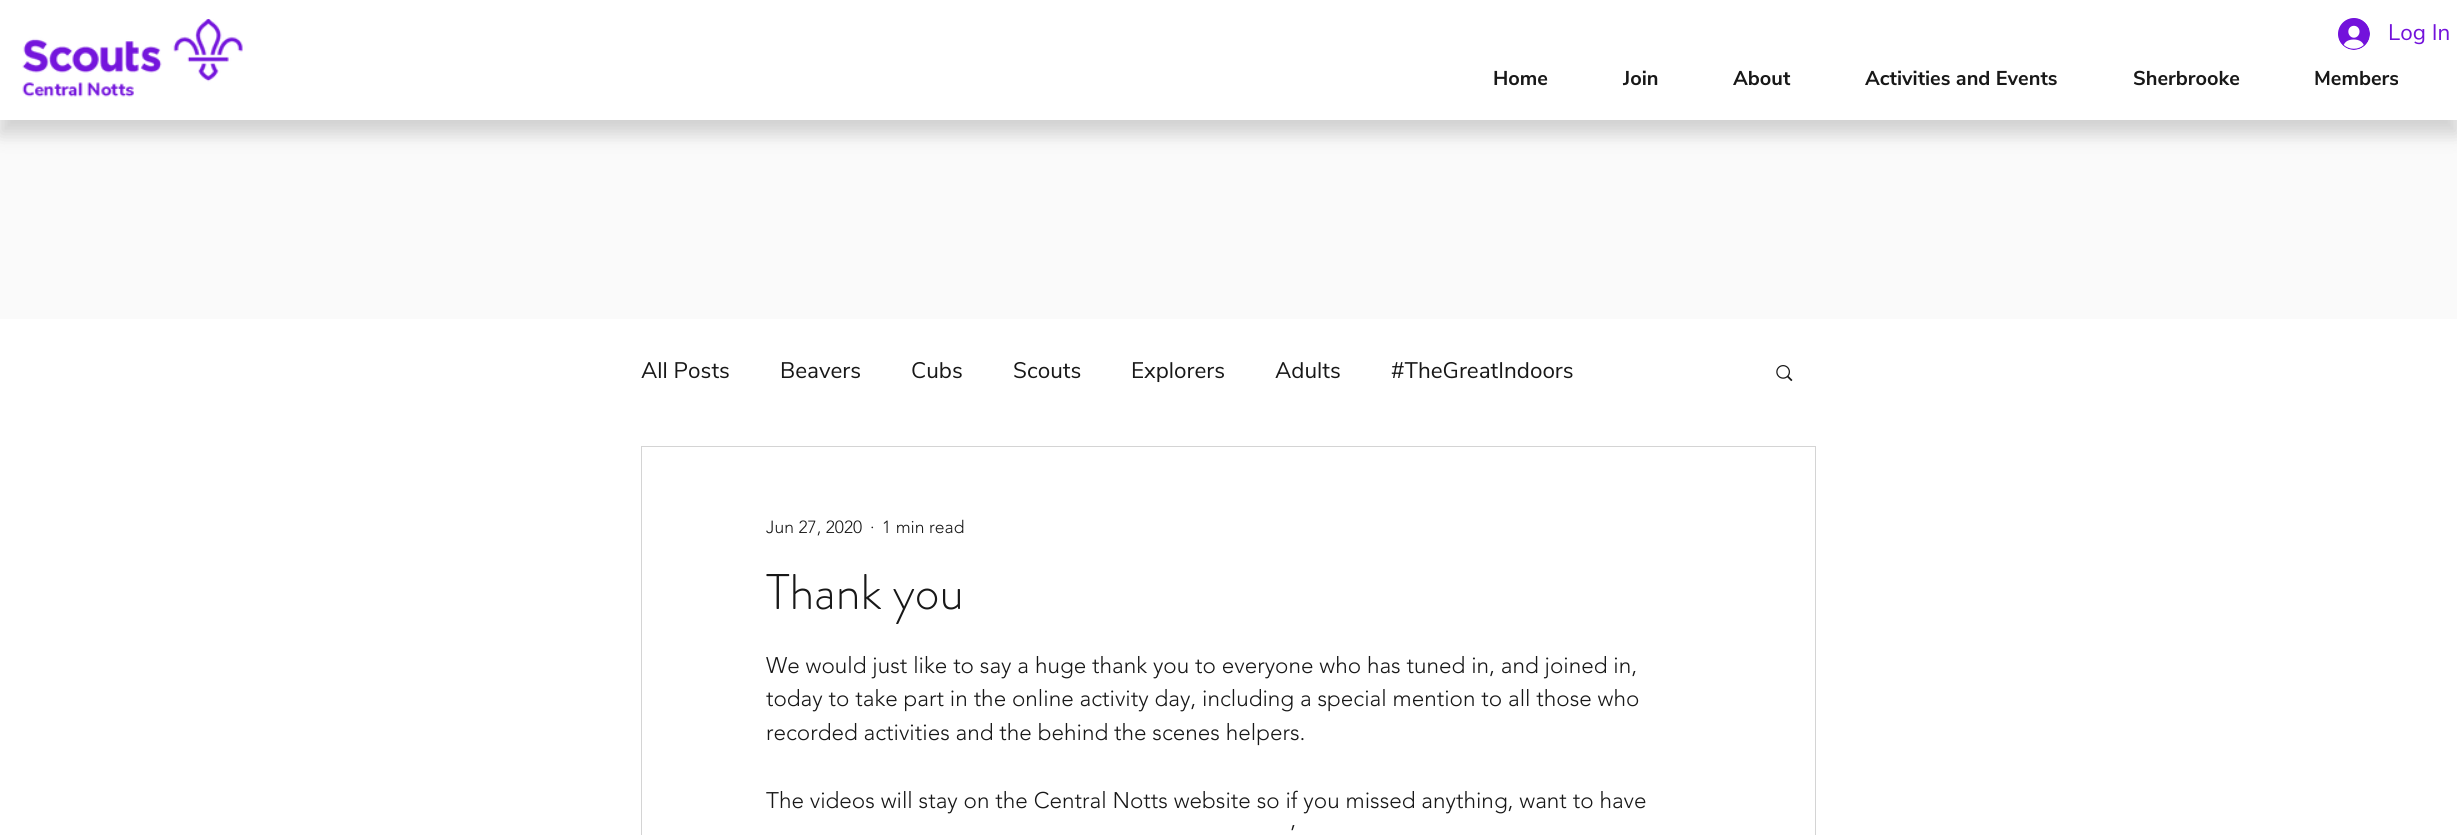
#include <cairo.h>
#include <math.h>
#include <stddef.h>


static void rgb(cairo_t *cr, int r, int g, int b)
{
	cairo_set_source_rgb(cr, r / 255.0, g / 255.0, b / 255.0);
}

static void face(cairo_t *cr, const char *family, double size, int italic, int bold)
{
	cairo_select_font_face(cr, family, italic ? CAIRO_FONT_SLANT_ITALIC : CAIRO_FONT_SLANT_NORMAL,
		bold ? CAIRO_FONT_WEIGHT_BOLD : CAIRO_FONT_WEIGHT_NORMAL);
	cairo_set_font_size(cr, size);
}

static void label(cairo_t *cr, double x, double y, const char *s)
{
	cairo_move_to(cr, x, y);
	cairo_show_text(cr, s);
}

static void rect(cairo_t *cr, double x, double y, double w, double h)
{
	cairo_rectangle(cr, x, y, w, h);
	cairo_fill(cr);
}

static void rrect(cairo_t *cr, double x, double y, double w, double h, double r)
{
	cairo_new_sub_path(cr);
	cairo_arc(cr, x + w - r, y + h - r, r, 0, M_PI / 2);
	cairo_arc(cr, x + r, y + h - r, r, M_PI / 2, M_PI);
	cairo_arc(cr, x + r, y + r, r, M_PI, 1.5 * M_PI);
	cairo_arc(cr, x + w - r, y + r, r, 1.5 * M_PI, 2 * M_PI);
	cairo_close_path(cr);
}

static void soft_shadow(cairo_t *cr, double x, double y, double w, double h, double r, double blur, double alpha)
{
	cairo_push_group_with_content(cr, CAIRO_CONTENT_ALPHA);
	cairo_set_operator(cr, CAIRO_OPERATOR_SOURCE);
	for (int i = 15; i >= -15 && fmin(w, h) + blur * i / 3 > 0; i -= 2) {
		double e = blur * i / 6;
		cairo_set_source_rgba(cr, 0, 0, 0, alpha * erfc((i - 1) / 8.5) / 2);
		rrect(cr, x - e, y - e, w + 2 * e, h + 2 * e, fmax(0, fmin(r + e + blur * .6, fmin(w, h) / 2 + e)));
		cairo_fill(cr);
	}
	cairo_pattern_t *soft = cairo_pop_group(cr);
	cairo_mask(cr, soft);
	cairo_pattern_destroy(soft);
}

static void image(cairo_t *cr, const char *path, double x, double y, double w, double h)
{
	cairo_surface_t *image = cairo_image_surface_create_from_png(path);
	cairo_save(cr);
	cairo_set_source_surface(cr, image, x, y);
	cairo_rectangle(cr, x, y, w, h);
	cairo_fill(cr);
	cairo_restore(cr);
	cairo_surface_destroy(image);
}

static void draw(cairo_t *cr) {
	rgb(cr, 255, 255, 255);
	cairo_paint(cr);
	rgb(cr, 250, 250, 250);
	rect(cr, 0, 120, 2457, 199);
	rgb(cr, 0, 0, 0);
	soft_shadow(cr, 0, 14, 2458, 120, 0, 9, 0.17);
	rgb(cr, 255, 255, 255);
	rect(cr, 0, 0, 2457, 120);
	image(cr, "image0.png", 22, 19, 221, 78);
	image(cr, "image1.png", 2338, 18, 32, 32);
	face(cr, "Nunito Sans", 22.5, 0, 0);
	rgb(cr, 115, 18, 219);
	label(cr, 2388, 40, "Log In");
	face(cr, "Nunito Sans", 20, 0, 1);
	rgb(cr, 24, 24, 24);
	label(cr, 1493, 85, "Home");
	label(cr, 1623, 85, "Join");
	label(cr, 1733, 85, "About");
	label(cr, 1865, 85, "Activities and Events");
	label(cr, 2133, 85, "Sherbrooke");
	label(cr, 2314, 85, "Members");
	face(cr, "Nunito Sans", 22.5, 0, 0);
	label(cr, 641, 378, "All Posts");
	label(cr, 780, 378, "Beavers");
	label(cr, 911, 378, "Cubs");
	label(cr, 1013, 378, "Scouts");
	label(cr, 1131, 378, "Explorers");
	label(cr, 1275, 378, "Adults");
	label(cr, 1391, 378, "#TheGreatIndoors");
	image(cr, "image2.png", 1776, 365, 17, 17);
	cairo_rectangle(cr, 641.5, 446.5, 1174, 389);
	rgb(cr, 212, 212, 212);
	cairo_set_line_width(cr, 1);
	cairo_stroke(cr);
	face(cr, "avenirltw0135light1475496 Light", 17.5, 0, 0);
	rgb(cr, 24, 24, 24);
	label(cr, 766, 533, "Jun 27, 2020");
	label(cr, 870, 533, "·");
	label(cr, 882, 533, "1 min read");
	face(cr, "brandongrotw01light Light", 50, 0, 0);
	label(cr, 766, 609, "Thank you");
	face(cr, "avenirltw0135light1475496 Light", 22.5, 0, 0);
	label(cr, 766, 673, "We would just like to say a huge thank you to everyone who has tuned in, and joined in,");
	label(cr, 766, 706, "today to take part in the online activity day, including a special mention to all those who");
	label(cr, 766, 740, "recorded activities and the behind the scenes helpers.");
	label(cr, 766, 808, "The videos will stay on the Central Notts website so if you missed anything, want to have");
	label(cr, 1290, 841, "’");
}

int main(void) {
	cairo_surface_t *surface = cairo_image_surface_create(CAIRO_FORMAT_RGB24, 2457, 835);
	cairo_t *cr = cairo_create(surface);
	cairo_font_options_t *options = cairo_font_options_create();
	cairo_font_options_set_hint_metrics(options, CAIRO_HINT_METRICS_OFF);
	cairo_font_options_set_hint_style(options, CAIRO_HINT_STYLE_NONE);
	cairo_set_font_options(cr, options);
	cairo_set_miter_limit(cr, 4);
	draw(cr);
	cairo_surface_write_to_png(surface, "render.png");
	cairo_font_options_destroy(options);
	cairo_destroy(cr);
	cairo_surface_destroy(surface);
	return 0;
}
